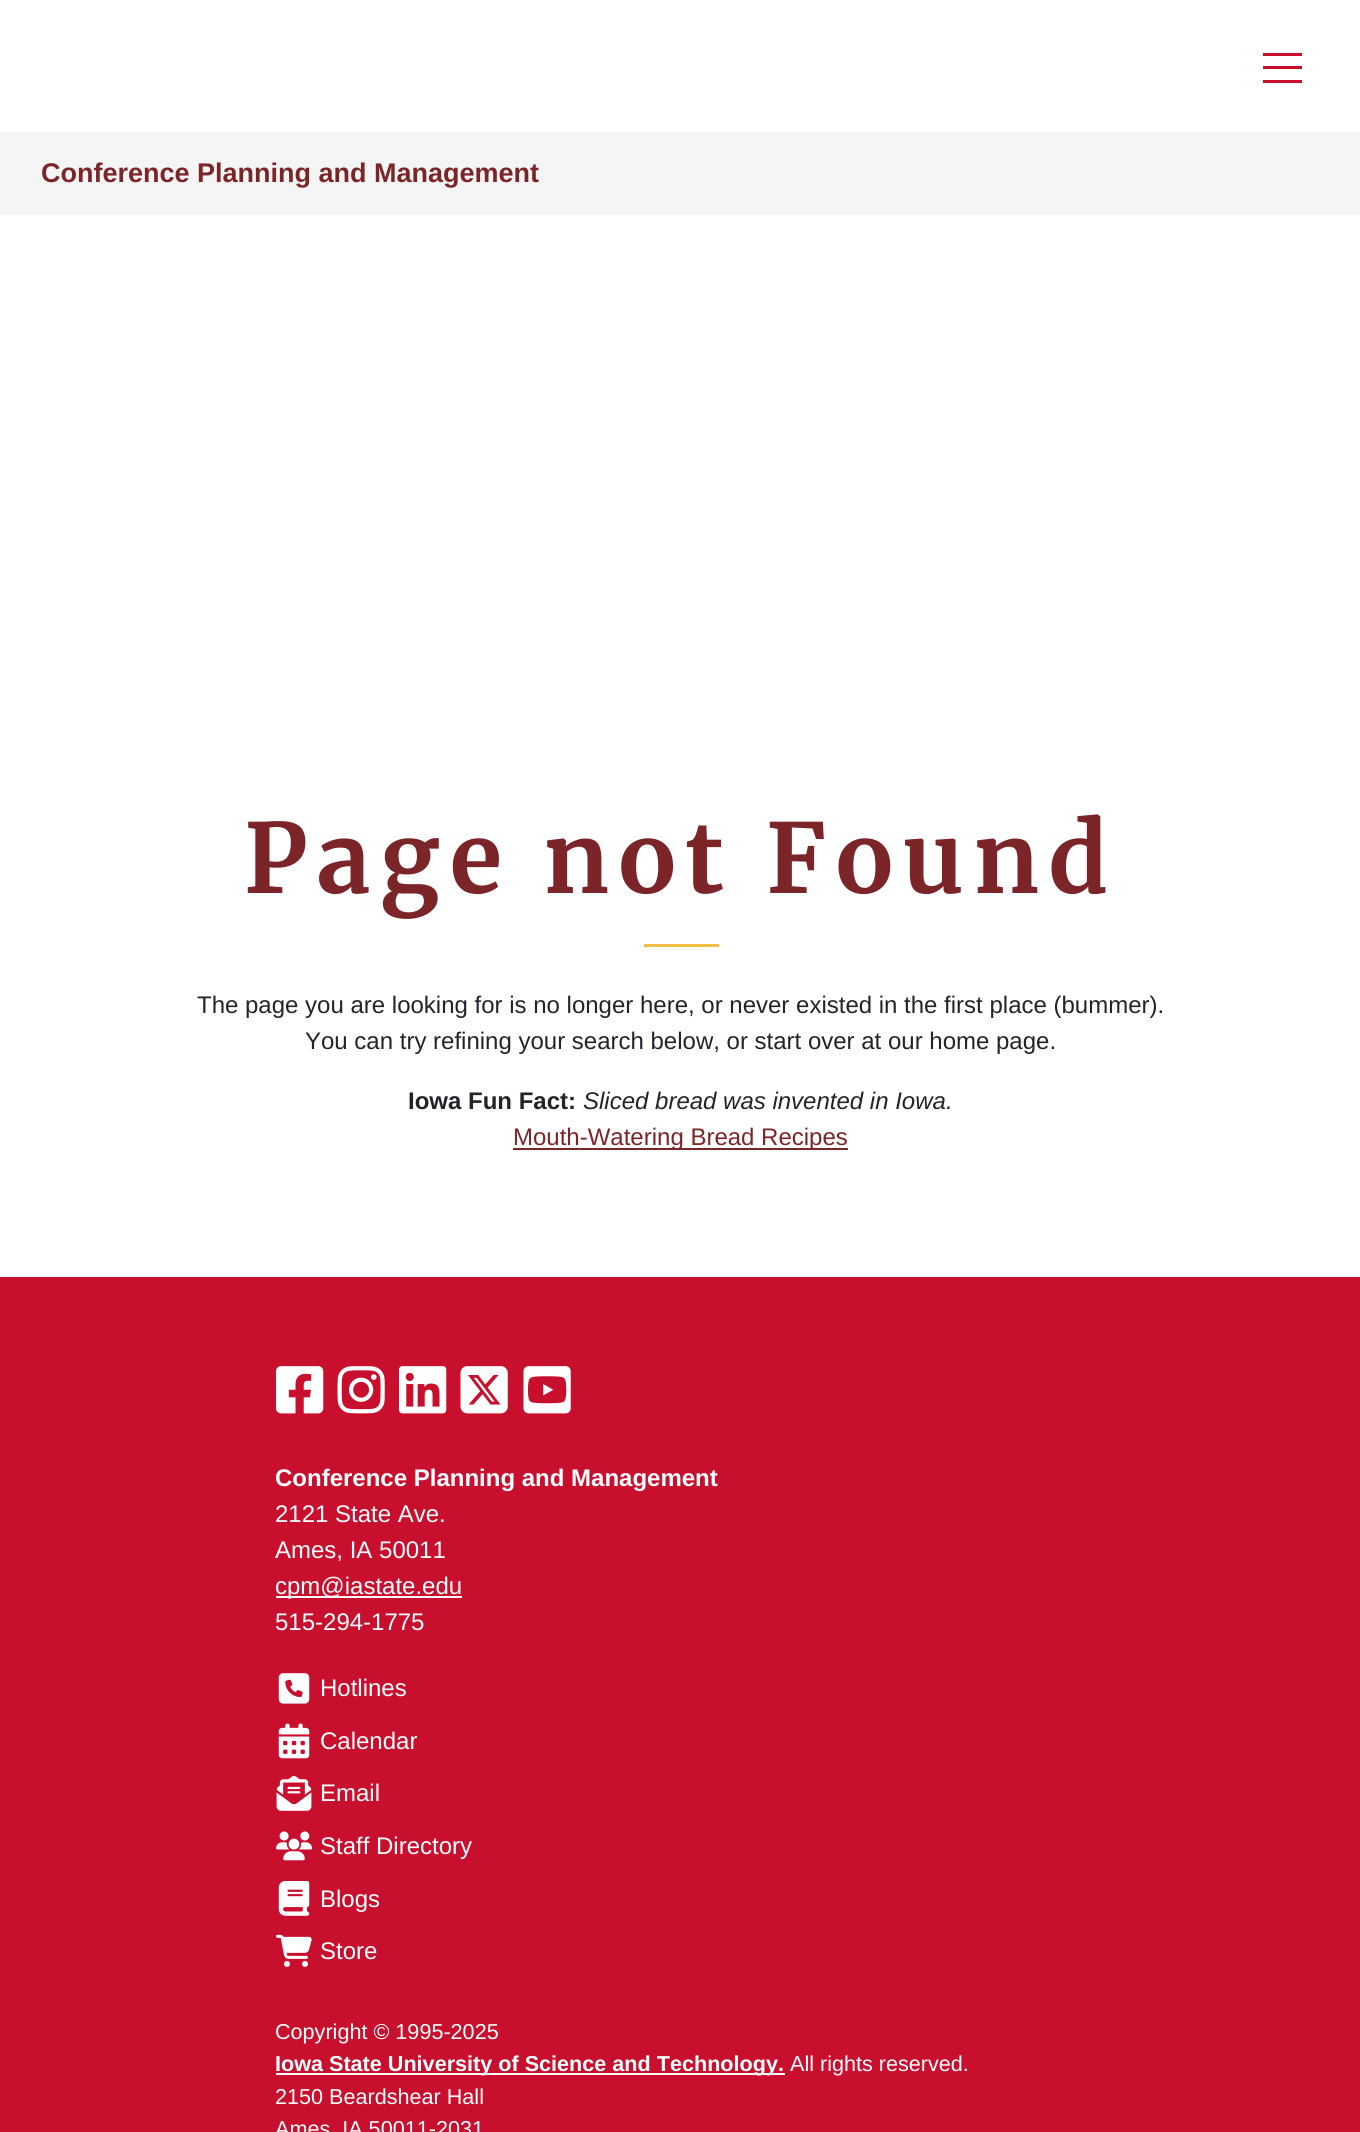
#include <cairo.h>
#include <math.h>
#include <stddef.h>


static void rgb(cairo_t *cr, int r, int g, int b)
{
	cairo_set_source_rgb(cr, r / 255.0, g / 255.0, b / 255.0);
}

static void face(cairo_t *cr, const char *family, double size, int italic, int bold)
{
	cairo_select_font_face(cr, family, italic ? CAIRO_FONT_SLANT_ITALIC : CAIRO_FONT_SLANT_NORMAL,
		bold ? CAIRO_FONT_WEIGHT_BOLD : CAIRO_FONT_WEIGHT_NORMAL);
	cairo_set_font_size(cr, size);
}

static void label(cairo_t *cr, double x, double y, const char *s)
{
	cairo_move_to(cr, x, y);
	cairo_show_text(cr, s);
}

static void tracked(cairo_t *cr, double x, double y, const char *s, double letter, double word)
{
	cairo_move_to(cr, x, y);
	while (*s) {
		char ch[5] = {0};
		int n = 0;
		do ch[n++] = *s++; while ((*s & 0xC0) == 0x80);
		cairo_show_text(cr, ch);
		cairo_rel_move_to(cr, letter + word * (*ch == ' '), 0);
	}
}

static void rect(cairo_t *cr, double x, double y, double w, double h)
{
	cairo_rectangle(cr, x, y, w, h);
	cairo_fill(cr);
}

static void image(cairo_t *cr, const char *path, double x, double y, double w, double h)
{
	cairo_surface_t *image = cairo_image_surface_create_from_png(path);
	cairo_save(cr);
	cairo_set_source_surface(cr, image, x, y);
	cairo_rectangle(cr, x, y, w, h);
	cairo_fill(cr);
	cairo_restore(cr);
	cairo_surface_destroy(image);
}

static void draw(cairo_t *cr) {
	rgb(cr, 255, 255, 255);
	cairo_paint(cr);
	rgb(cr, 200, 16, 46);
	rect(cr, 1263, 53, 39, 3);
	rect(cr, 1263, 66, 39, 3);
	rect(cr, 1263, 80, 39, 3);
	rgb(cr, 245, 245, 245);
	rect(cr, 0, 132, 1360, 83);
	face(cr, "Liberation Sans", 27, 0, 1);
	rgb(cr, 124, 37, 41);
	label(cr, 41, 182, "Conference Planning and Management");
	face(cr, "Merriweather", 96, 0, 1);
	tracked(cr, 244, 893, "Page not Found", 9.6, 0);
	rgb(cr, 241, 190, 72);
	rect(cr, 644, 944, 75, 3);
	face(cr, "Liberation Sans", 24, 0, 0);
	rgb(cr, 33, 37, 41);
	label(cr, 197, 1013, "The page you are looking for is no longer here, or never existed in the first place (bummer).");
	label(cr, 305, 1049, "You can try refining your search below, or start over at our home page.");
	face(cr, "Liberation Sans", 24, 0, 1);
	label(cr, 408, 1109, "Iowa Fun Fact:");
	face(cr, "Liberation Sans", 24, 1, 0);
	label(cr, 583, 1109, "Sliced bread was invented in Iowa.");
	rgb(cr, 124, 37, 41);
	rect(cr, 513, 1148, 335, 2);
	face(cr, "Liberation Sans", 24, 0, 0);
	label(cr, 513, 1145, "Mouth-Watering Bread Recipes");
	rgb(cr, 200, 16, 46);
	rect(cr, 0, 1277, 1360, 855);
	image(cr, "image0.png", 276, 1366, 48, 48);
	image(cr, "image1.png", 337, 1366, 48, 48);
	image(cr, "image2.png", 399, 1366, 48, 48);
	image(cr, "image3.png", 460, 1366, 48, 48);
	image(cr, "image4.png", 523, 1366, 48, 48);
	face(cr, "Liberation Sans", 24, 0, 1);
	rgb(cr, 255, 255, 255);
	label(cr, 275, 1486, "Conference Planning and Management");
	face(cr, "Liberation Sans", 24, 0, 0);
	label(cr, 275, 1522, "2121 State Ave.");
	label(cr, 275, 1558, "Ames, IA 50011");
	rect(cr, 276, 1596, 186, 2);
	label(cr, 275, 1594, "cpm@iastate.edu");
	label(cr, 275, 1630, "515-294-1775");
	image(cr, "image5.png", 278, 1673, 32, 31);
	label(cr, 320, 1696, "Hotlines");
	image(cr, "image6.png", 278, 1723, 32, 36);
	label(cr, 320, 1749, "Calendar");
	image(cr, "image7.png", 276, 1776, 36, 35);
	label(cr, 320, 1801, "Email");
	image(cr, "image8.png", 276, 1831, 36, 30);
	label(cr, 320, 1854, "Staff Directory");
	image(cr, "image9.png", 278, 1881, 32, 35);
	label(cr, 320, 1907, "Blogs");
	image(cr, "image10.png", 276, 1934, 36, 33);
	label(cr, 320, 1959, "Store");
	face(cr, "Liberation Sans", 21.6, 0, 0);
	label(cr, 275, 2039, "Copyright © 1995-2025");
	rect(cr, 276, 2073, 509, 2);
	face(cr, "Liberation Sans", 21.6, 0, 1);
	label(cr, 275, 2071, "Iowa State University of Science and Technology.");
	face(cr, "Liberation Sans", 21.6, 0, 0);
	label(cr, 790, 2071, "All rights reserved.");
	label(cr, 275, 2104, "2150 Beardshear Hall");
	label(cr, 275, 2136, "Ames, IA 50011-2031");
}

int main(void) {
	cairo_surface_t *surface = cairo_image_surface_create(CAIRO_FORMAT_RGB24, 1360, 2132);
	cairo_t *cr = cairo_create(surface);
	cairo_font_options_t *options = cairo_font_options_create();
	cairo_font_options_set_hint_metrics(options, CAIRO_HINT_METRICS_OFF);
	cairo_font_options_set_hint_style(options, CAIRO_HINT_STYLE_NONE);
	cairo_set_font_options(cr, options);
	cairo_set_miter_limit(cr, 4);
	draw(cr);
	cairo_surface_write_to_png(surface, "render.png");
	cairo_font_options_destroy(options);
	cairo_destroy(cr);
	cairo_surface_destroy(surface);
	return 0;
}
